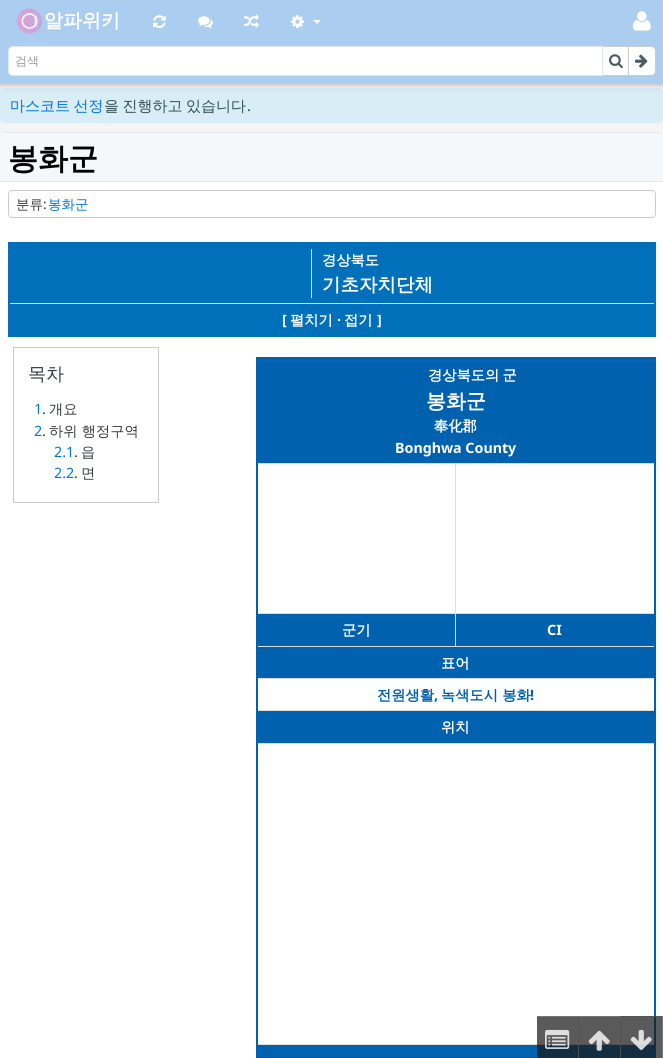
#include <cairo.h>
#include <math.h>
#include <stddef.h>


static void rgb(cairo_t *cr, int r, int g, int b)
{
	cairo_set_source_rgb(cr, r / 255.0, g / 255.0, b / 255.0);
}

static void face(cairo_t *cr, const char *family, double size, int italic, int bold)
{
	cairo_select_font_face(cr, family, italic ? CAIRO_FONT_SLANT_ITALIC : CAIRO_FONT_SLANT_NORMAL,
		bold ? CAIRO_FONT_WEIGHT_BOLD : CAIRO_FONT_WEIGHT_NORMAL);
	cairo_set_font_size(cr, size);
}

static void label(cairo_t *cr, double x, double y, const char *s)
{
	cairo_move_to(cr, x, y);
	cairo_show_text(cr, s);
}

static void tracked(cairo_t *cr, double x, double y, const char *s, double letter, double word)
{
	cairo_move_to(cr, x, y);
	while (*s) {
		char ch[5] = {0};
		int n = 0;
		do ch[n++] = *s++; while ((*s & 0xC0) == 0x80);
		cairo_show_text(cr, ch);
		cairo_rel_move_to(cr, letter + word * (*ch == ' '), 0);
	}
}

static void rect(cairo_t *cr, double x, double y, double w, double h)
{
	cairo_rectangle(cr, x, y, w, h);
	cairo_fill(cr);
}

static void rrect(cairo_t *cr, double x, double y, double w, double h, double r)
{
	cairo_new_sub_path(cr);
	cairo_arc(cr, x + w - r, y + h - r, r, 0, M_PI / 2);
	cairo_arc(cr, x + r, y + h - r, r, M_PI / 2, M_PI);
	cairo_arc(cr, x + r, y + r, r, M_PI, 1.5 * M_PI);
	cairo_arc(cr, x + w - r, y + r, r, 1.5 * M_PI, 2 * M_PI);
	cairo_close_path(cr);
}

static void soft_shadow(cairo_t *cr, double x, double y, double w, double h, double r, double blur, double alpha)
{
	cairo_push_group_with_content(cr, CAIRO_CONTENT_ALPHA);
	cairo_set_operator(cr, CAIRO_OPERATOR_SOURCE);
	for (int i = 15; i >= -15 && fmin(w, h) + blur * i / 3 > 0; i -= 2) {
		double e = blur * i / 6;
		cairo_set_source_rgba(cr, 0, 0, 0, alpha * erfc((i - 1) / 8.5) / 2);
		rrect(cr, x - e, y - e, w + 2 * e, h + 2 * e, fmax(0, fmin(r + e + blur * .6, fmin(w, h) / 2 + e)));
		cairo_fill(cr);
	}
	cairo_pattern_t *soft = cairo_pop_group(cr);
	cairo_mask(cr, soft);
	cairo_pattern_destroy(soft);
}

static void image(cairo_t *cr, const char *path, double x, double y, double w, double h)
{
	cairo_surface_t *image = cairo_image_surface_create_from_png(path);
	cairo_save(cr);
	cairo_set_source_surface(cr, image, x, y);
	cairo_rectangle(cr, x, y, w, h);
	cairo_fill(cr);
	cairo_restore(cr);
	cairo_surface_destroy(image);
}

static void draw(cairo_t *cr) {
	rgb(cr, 245, 245, 245);
	cairo_paint(cr);
	rgb(cr, 217, 237, 247);
	rrect(cr, 0, 88, 663, 35, 4);
	cairo_fill(cr);
	rgb(cr, 0, 0, 0);
	soft_shadow(cr, 0, 2, 663, 83, 0, 5, 0.12);
	soft_shadow(cr, 0, 2, 663, 83, 0, 2, 0.16);
	rgb(cr, 171, 205, 239);
	rect(cr, 0, 0, 663, 83);
	image(cr, "image0.png", 16, 8, 27, 26);
	face(cr, "WenQuanYi Zen Hei", 19, 0, 1);
	rgb(cr, 255, 255, 255);
	label(cr, 44, 27, "알파위키");
	image(cr, "image1.png", 153, 15, 13, 14);
	image(cr, "image2.png", 198, 16, 15, 12);
	image(cr, "image3.png", 244, 14, 15, 14);
	image(cr, "image4.png", 291, 15, 13, 14);
	cairo_new_path(cr);
	cairo_move_to(cr, 313, 20);
	cairo_line_to(cr, 321, 20);
	cairo_line_to(cr, 317, 24);
	cairo_close_path(cr);
	cairo_fill(cr);
	image(cr, "image5.png", 633, 11, 18, 20);
	cairo_rectangle(cr, 602.5, 46.5, 26, 29);
	cairo_fill_preserve(cr);
	rgb(cr, 204, 204, 204);
	cairo_set_line_width(cr, 1);
	cairo_stroke(cr);
	rgb(cr, 255, 255, 255);
	cairo_new_path(cr);
	cairo_move_to(cr, 13, 46.5);
	cairo_line_to(cr, 602.5, 46.5);
	cairo_line_to(cr, 602.5, 75.5);
	cairo_line_to(cr, 13, 75.5);
	cairo_curve_to(cr, 10.5, 75.5, 8.5, 73.5, 8.5, 71);
	cairo_line_to(cr, 8.5, 51);
	cairo_curve_to(cr, 8.5, 48.5, 10.5, 46.5, 13, 46.5);
	cairo_close_path(cr);
	cairo_fill_preserve(cr);
	rgb(cr, 225, 232, 237);
	cairo_stroke(cr);
	face(cr, "WenQuanYi Zen Hei Medium", 12, 0, 0);
	rgb(cr, 153, 153, 153);
	label(cr, 15, 65, "검색");
	image(cr, "image6.png", 609, 54, 14, 15);
	rgb(cr, 255, 255, 255);
	cairo_new_path(cr);
	cairo_move_to(cr, 628.5, 46.5);
	cairo_line_to(cr, 651, 46.5);
	cairo_curve_to(cr, 653.5, 46.5, 655.5, 48.5, 655.5, 51);
	cairo_line_to(cr, 655.5, 71);
	cairo_curve_to(cr, 655.5, 73.5, 653.5, 75.5, 651, 75.5);
	cairo_line_to(cr, 628.5, 75.5);
	cairo_close_path(cr);
	cairo_fill_preserve(cr);
	rgb(cr, 204, 204, 204);
	cairo_stroke(cr);
	image(cr, "image7.png", 635, 54, 13, 14);
	face(cr, "WenQuanYi Zen Hei Medium", 15, 0, 0);
	rgb(cr, 2, 117, 216);
	tracked(cr, 10, 111, "마스코트 선정", 0, -1);
	rgb(cr, 47, 79, 79);
	tracked(cr, 104, 111, "을 진행하고 있습니다", 0, -1);
	face(cr, "Noto Sans", 15, 0, 0);
	label(cr, 247, 111, ".");
	rgb(cr, 245, 248, 250);
	cairo_new_path(cr);
	cairo_move_to(cr, 5, 132);
	cairo_line_to(cr, 658, 132);
	cairo_curve_to(cr, 661, 132, 663, 134, 663, 137);
	cairo_line_to(cr, 663, 182);
	cairo_line_to(cr, 0, 182);
	cairo_line_to(cr, 0, 137);
	cairo_curve_to(cr, 0, 134, 2, 132, 5, 132);
	cairo_close_path(cr);
	cairo_fill(cr);
	rgb(cr, 225, 232, 237);
	rect(cr, 3, 132, 657, 1);
	rect(cr, 0, 181, 663, 1);
	face(cr, "WenQuanYi Zen Hei", 30, 0, 1);
	rgb(cr, 0, 0, 0);
	label(cr, 8, 169, "봉화군");
	rgb(cr, 255, 255, 255);
	rect(cr, 0, 182, 663, 876);
	rgb(cr, 90, 90, 90);
	rect(cr, 621, 1017, 41, 41);
	rgb(cr, 85, 85, 85);
	rect(cr, 621, 1016, 42, 1);
	rgb(cr, 90, 90, 90);
	rect(cr, 579, 1017, 41, 27);
	rgb(cr, 85, 85, 85);
	rect(cr, 620, 1016, 1, 28);
	rgb(cr, 90, 90, 90);
	rect(cr, 537, 1017, 41, 27);
	rgb(cr, 85, 85, 85);
	rect(cr, 578, 1016, 1, 28);
	rrect(cr, 8.5, 190.5, 647, 27, 3.5);
	rgb(cr, 204, 204, 204);
	cairo_stroke(cr);
	face(cr, "WenQuanYi Zen Hei Medium", 13.5, 0, 0);
	rgb(cr, 55, 58, 60);
	label(cr, 16, 209, "분류");
	face(cr, "Noto Sans", 13.5, 0, 0);
	label(cr, 43, 209, ":");
	face(cr, "WenQuanYi Zen Hei Medium", 13.5, 0, 0);
	rgb(cr, 2, 117, 216);
	label(cr, 48, 209, "봉화군");
	rgb(cr, 0, 112, 187);
	rect(cr, 10, 244, 644, 91);
	rect(cr, 8, 242, 648, 2);
	rgb(cr, 221, 221, 221);
	rect(cr, 8, 303, 647, 1);
	rgb(cr, 0, 112, 187);
	rect(cr, 654, 242, 2, 95);
	rect(cr, 8, 335, 648, 2);
	rect(cr, 8, 242, 2, 95);
	rgb(cr, 221, 221, 221);
	rect(cr, 311, 247, 1, 52);
	rgb(cr, 0, 112, 187);
	rect(cr, 311, 247, 1, 2);
	rect(cr, 311, 298, 1, 1);
	face(cr, "WenQuanYi Zen Hei", 14.25, 0, 1);
	rgb(cr, 255, 255, 255);
	label(cr, 322, 265, "경상북도");
	face(cr, "WenQuanYi Zen Hei", 18.5, 0, 1);
	label(cr, 322, 291, "기초자치단체");
	face(cr, "Noto Sans", 14.25, 0, 1);
	label(cr, 282, 325, "[");
	face(cr, "WenQuanYi Zen Hei", 14.25, 0, 1);
	label(cr, 290, 325, "펼치기");
	face(cr, "Noto Sans", 14.25, 0, 1);
	label(cr, 337, 325, "·");
	face(cr, "WenQuanYi Zen Hei", 14.25, 0, 1);
	label(cr, 344, 325, "접기");
	face(cr, "Noto Sans", 14.25, 0, 1);
	label(cr, 377, 325, "]");
	cairo_rectangle(cr, 13.5, 347.5, 145, 155);
	rgb(cr, 204, 204, 204);
	cairo_stroke(cr);
	face(cr, "WenQuanYi Zen Hei Medium", 18, 0, 0);
	rgb(cr, 55, 58, 60);
	label(cr, 28, 380, "목차");
	face(cr, "Noto Sans", 14.25, 0, 0);
	rgb(cr, 2, 117, 216);
	label(cr, 34, 414, "1");
	rgb(cr, 55, 58, 60);
	label(cr, 42, 414, ".");
	face(cr, "WenQuanYi Zen Hei Medium", 14.25, 0, 0);
	label(cr, 49, 414, "개요");
	face(cr, "Noto Sans", 14.25, 0, 0);
	rgb(cr, 2, 117, 216);
	label(cr, 34, 436, "2");
	rgb(cr, 55, 58, 60);
	label(cr, 42, 436, ".");
	face(cr, "WenQuanYi Zen Hei Medium", 14.25, 0, 0);
	label(cr, 49, 436, "하위 행정구역");
	face(cr, "Noto Sans", 14.25, 0, 0);
	rgb(cr, 2, 117, 216);
	label(cr, 54, 457, "2.1");
	rgb(cr, 55, 58, 60);
	label(cr, 74, 457, ".");
	face(cr, "WenQuanYi Zen Hei Medium", 14.25, 0, 0);
	label(cr, 81, 457, "읍");
	face(cr, "Noto Sans", 14.25, 0, 0);
	rgb(cr, 2, 117, 216);
	label(cr, 54, 478, "2.2");
	rgb(cr, 55, 58, 60);
	label(cr, 74, 478, ".");
	face(cr, "WenQuanYi Zen Hei Medium", 14.25, 0, 0);
	label(cr, 81, 478, "면");
	rgb(cr, 0, 97, 174);
	rect(cr, 256, 357, 400, 2);
	rgb(cr, 221, 221, 221);
	rect(cr, 455, 463, 200, 1);
	rect(cr, 455, 613, 200, 1);
	rect(cr, 256, 646, 399, 1);
	rect(cr, 256, 678, 399, 1);
	rect(cr, 256, 710, 399, 1);
	rect(cr, 256, 743, 399, 1);
	rgb(cr, 0, 97, 174);
	rect(cr, 654, 357, 2, 659);
	rgb(cr, 71, 76, 81);
	rect(cr, 620, 1044, 1, 14);
	rect(cr, 578, 1044, 1, 14);
	rgb(cr, 81, 81, 81);
	rect(cr, 537, 1044, 118, 1);
	rgb(cr, 19, 46, 67);
	rect(cr, 654, 1016, 2, 42);
	rgb(cr, 71, 76, 81);
	rect(cr, 654, 1016, 2, 1);
	rgb(cr, 221, 221, 221);
	rect(cr, 455, 613, 1, 34);
	rect(cr, 256, 613, 200, 1);
	rect(cr, 455, 463, 1, 151);
	rect(cr, 256, 463, 200, 1);
	rect(cr, 256, 1044, 281, 1);
	rgb(cr, 0, 97, 174);
	rect(cr, 256, 357, 2, 701);
	rect(cr, 258, 359, 396, 104);
	face(cr, "WenQuanYi Zen Hei", 14.25, 0, 1);
	rgb(cr, 255, 255, 255);
	tracked(cr, 428, 380, "경상북도의 군", 0, -1);
	face(cr, "WenQuanYi Zen Hei", 20, 0, 1);
	label(cr, 426, 408, "봉화군");
	face(cr, "WenQuanYi Zen Hei", 14.25, 0, 1);
	label(cr, 434, 431, "奉化郡");
	face(cr, "Noto Sans", 14.25, 0, 1);
	label(cr, 395, 453, "Bonghwa County");
	rgb(cr, 0, 97, 174);
	rect(cr, 258, 614, 197, 32);
	face(cr, "WenQuanYi Zen Hei", 14.25, 0, 1);
	rgb(cr, 255, 255, 255);
	label(cr, 342, 635, "군기");
	rgb(cr, 0, 97, 174);
	rect(cr, 456, 614, 198, 32);
	face(cr, "Noto Sans", 14.25, 0, 1);
	rgb(cr, 255, 255, 255);
	label(cr, 547, 635, "CI");
	rgb(cr, 0, 97, 174);
	rect(cr, 258, 647, 396, 31);
	face(cr, "WenQuanYi Zen Hei", 14.25, 0, 1);
	rgb(cr, 255, 255, 255);
	label(cr, 441, 668, "표어");
	rgb(cr, 0, 97, 174);
	label(cr, 377, 700, "전원생활");
	face(cr, "Noto Sans", 14.25, 0, 1);
	label(cr, 434, 700, ",");
	face(cr, "WenQuanYi Zen Hei", 14.25, 0, 1);
	label(cr, 441, 700, "녹색도시 봉화");
	face(cr, "Noto Sans", 14.25, 0, 1);
	label(cr, 530, 700, "!");
	rect(cr, 258, 711, 396, 32);
	face(cr, "WenQuanYi Zen Hei", 14.25, 0, 1);
	rgb(cr, 255, 255, 255);
	label(cr, 441, 732, "위치");
	rgb(cr, 0, 97, 174);
	rect(cr, 258, 1045, 279, 13);
	rgb(cr, 19, 46, 67);
	rect(cr, 621, 1045, 33, 13);
	rect(cr, 579, 1045, 41, 13);
	rect(cr, 537, 1045, 41, 13);
	rgb(cr, 118, 118, 118);
	rect(cr, 537, 1016, 84, 1);
	rgb(cr, 91, 91, 91);
	rect(cr, 578, 1016, 1, 1);
	image(cr, "image8.png", 545, 1029, 25, 20);
	rect(cr, 620, 1016, 1, 1);
	image(cr, "image9.png", 588, 1030, 22, 21);
	rgb(cr, 118, 118, 118);
	rect(cr, 662, 1016, 1, 42);
	image(cr, "image10.png", 630, 1029, 22, 21);
}

int main(void) {
	cairo_surface_t *surface = cairo_image_surface_create(CAIRO_FORMAT_RGB24, 663, 1058);
	cairo_t *cr = cairo_create(surface);
	cairo_font_options_t *options = cairo_font_options_create();
	cairo_font_options_set_hint_metrics(options, CAIRO_HINT_METRICS_OFF);
	cairo_font_options_set_hint_style(options, CAIRO_HINT_STYLE_NONE);
	cairo_set_font_options(cr, options);
	cairo_set_miter_limit(cr, 4);
	draw(cr);
	cairo_surface_write_to_png(surface, "render.png");
	cairo_font_options_destroy(options);
	cairo_destroy(cr);
	cairo_surface_destroy(surface);
	return 0;
}
